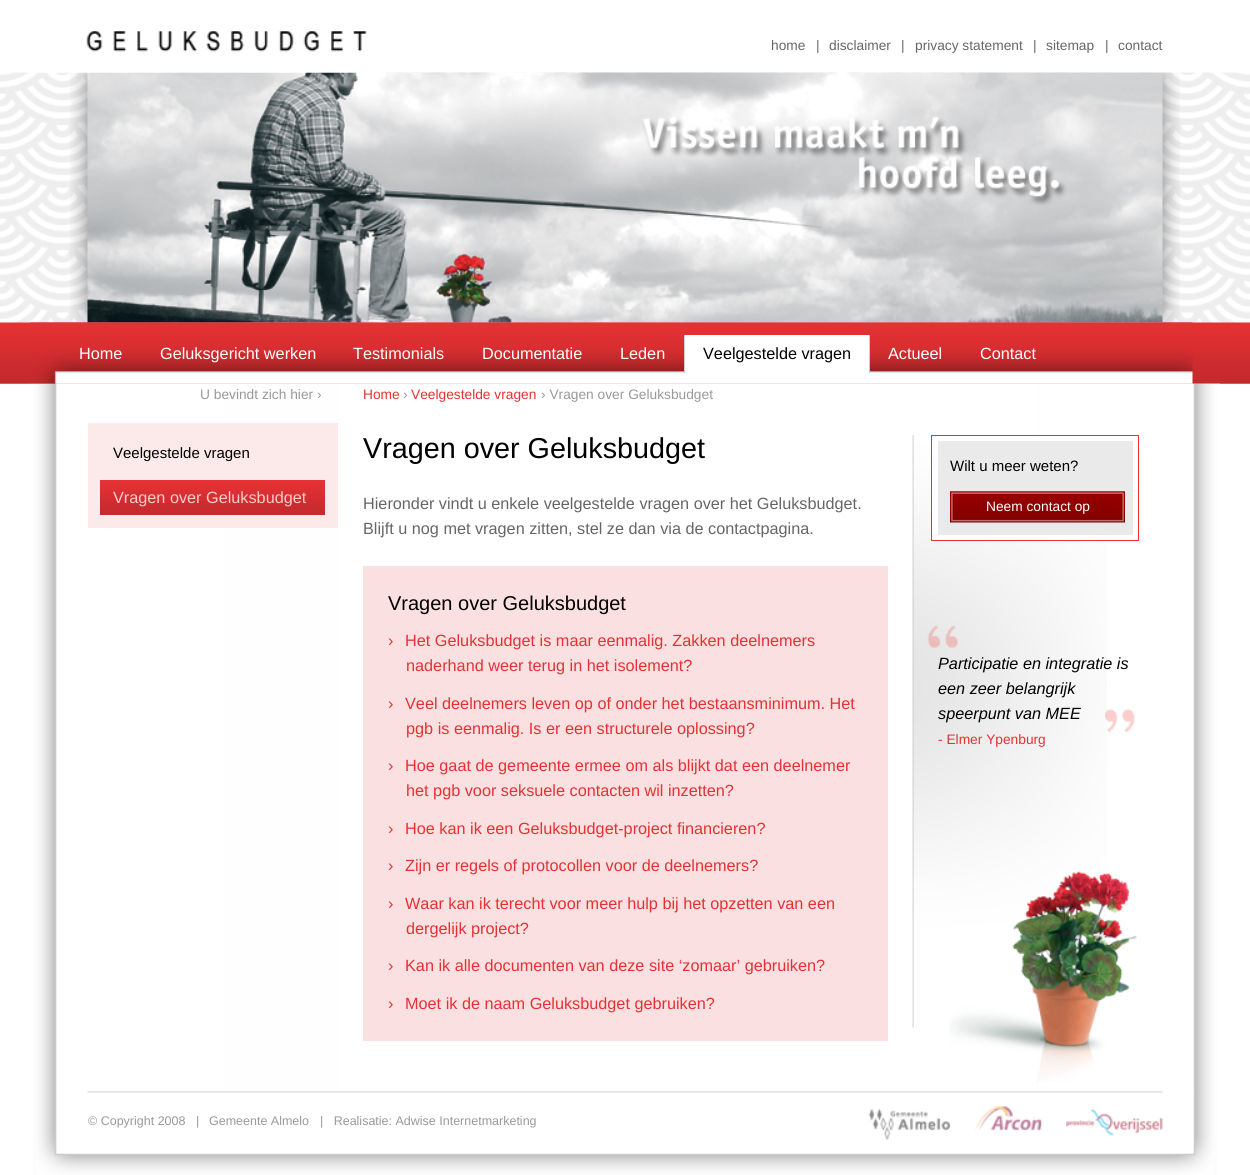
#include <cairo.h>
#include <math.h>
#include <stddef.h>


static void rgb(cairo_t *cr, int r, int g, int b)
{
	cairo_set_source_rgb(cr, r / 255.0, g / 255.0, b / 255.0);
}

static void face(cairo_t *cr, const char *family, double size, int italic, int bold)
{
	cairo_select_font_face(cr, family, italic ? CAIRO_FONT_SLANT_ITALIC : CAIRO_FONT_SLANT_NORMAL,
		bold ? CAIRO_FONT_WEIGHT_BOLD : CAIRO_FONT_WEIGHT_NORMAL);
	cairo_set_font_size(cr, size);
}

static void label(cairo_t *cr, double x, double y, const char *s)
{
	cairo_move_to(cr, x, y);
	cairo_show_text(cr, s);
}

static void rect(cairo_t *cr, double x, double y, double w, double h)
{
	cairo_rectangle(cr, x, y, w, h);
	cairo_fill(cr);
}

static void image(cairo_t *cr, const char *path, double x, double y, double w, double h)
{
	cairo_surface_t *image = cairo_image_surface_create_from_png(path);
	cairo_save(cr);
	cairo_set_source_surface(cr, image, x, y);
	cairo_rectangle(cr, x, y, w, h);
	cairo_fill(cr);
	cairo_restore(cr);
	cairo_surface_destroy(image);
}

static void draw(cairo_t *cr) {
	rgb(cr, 255, 255, 255);
	cairo_paint(cr);
	image(cr, "image0.png", 0, 72, 1250, 312);
	image(cr, "image2.png", 70, 72, 1110, 251);
	image(cr, "image1.png", 39, 31, 328, 42);
	face(cr, "Liberation Sans", 13.75, 0, 0);
	rgb(cr, 102, 102, 102);
	label(cr, 771, 50, "home");
	label(cr, 816, 50, "|");
	label(cr, 829, 50, "disclaimer");
	label(cr, 901, 50, "|");
	label(cr, 915, 50, "privacy statement");
	label(cr, 1033, 50, "|");
	label(cr, 1046, 50, "sitemap");
	label(cr, 1105, 50, "|");
	label(cr, 1118, 50, "contact");
	image(cr, "image3.png", 30, 322, 1163, 62);
	face(cr, "Liberation Sans", 16.25, 0, 0);
	rgb(cr, 255, 255, 255);
	label(cr, 79, 359, "Home");
	label(cr, 160, 359, "Geluksgericht werken");
	label(cr, 353, 359, "Testimonials");
	label(cr, 482, 359, "Documentatie");
	label(cr, 620, 359, "Leden");
	rect(cr, 685, 335, 184, 38);
	rgb(cr, 204, 204, 204);
	rect(cr, 869, 335, 1, 38);
	rect(cr, 684, 335, 1, 38);
	rgb(cr, 0, 0, 0);
	label(cr, 703, 359, "Veelgestelde vragen");
	rgb(cr, 255, 255, 255);
	label(cr, 888, 359, "Actueel");
	label(cr, 980, 359, "Contact");
	image(cr, "image4.png", 30, 383, 1190, 792);
	face(cr, "Liberation Sans", 13.75, 0, 0);
	rgb(cr, 153, 153, 153);
	label(cr, 200, 399, "U bevindt zich hier ›");
	rgb(cr, 229, 49, 52);
	label(cr, 363, 399, "Home");
	rgb(cr, 153, 153, 153);
	label(cr, 403, 399, "›");
	rgb(cr, 229, 49, 52);
	label(cr, 411, 399, "Veelgestelde vragen");
	rgb(cr, 153, 153, 153);
	label(cr, 541, 399, "› Vragen over Geluksbudget");
	rgb(cr, 252, 234, 234);
	rect(cr, 88, 423, 250, 105);
	face(cr, "Liberation Sans", 15, 0, 0);
	rgb(cr, 0, 0, 0);
	label(cr, 113, 458, "Veelgestelde vragen");
	image(cr, "image5.png", 100, 480, 225, 35);
	face(cr, "Liberation Sans", 16.25, 0, 0);
	rgb(cr, 255, 204, 204);
	label(cr, 113, 503, "Vragen over Geluksbudget");
	face(cr, "Liberation Sans", 28.75, 0, 0);
	rgb(cr, 0, 0, 0);
	label(cr, 363, 458, "Vragen over Geluksbudget");
	face(cr, "Liberation Sans", 16.25, 0, 0);
	rgb(cr, 102, 102, 102);
	label(cr, 363, 509, "Hieronder vindt u enkele veelgestelde vragen over het Geluksbudget.");
	label(cr, 363, 534, "Blijft u nog met vragen zitten, stel ze dan via de contactpagina.");
	rgb(cr, 251, 224, 225);
	rect(cr, 363, 566, 525, 475);
	face(cr, "Liberation Sans", 20, 0, 0);
	rgb(cr, 0, 0, 0);
	label(cr, 388, 610, "Vragen over Geluksbudget");
	face(cr, "Liberation Sans", 16.25, 0, 0);
	rgb(cr, 229, 49, 52);
	label(cr, 388, 646, "›");
	label(cr, 405, 646, "Het Geluksbudget is maar eenmalig. Zakken deelnemers");
	label(cr, 406, 671, "naderhand weer terug in het isolement?");
	label(cr, 388, 709, "›");
	label(cr, 405, 709, "Veel deelnemers leven op of onder het bestaansminimum. Het");
	label(cr, 406, 734, "pgb is eenmalig. Is er een structurele oplossing?");
	label(cr, 388, 771, "›");
	label(cr, 405, 771, "Hoe gaat de gemeente ermee om als blijkt dat een deelnemer");
	label(cr, 406, 796, "het pgb voor seksuele contacten wil inzetten?");
	label(cr, 388, 834, "›");
	label(cr, 405, 834, "Hoe kan ik een Geluksbudget-project financieren?");
	label(cr, 388, 871, "›");
	label(cr, 405, 871, "Zijn er regels of protocollen voor de deelnemers?");
	label(cr, 388, 909, "›");
	label(cr, 405, 909, "Waar kan ik terecht voor meer hulp bij het opzetten van een");
	label(cr, 406, 934, "dergelijk project?");
	label(cr, 388, 971, "›");
	label(cr, 405, 971, "Kan ik alle documenten van deze site ‘zomaar’ gebruiken?");
	label(cr, 388, 1009, "›");
	label(cr, 405, 1009, "Moet ik de naam Geluksbudget gebruiken?");
	image(cr, "image6.png", 912, 435, 195, 593);
	rgb(cr, 255, 255, 255);
	rect(cr, 932, 468, 165, 72);
	cairo_rectangle(cr, 931.5, 435.5, 207, 105);
	rgb(cr, 229, 49, 52);
	cairo_set_line_width(cr, 1);
	cairo_stroke(cr);
	rgb(cr, 234, 234, 234);
	rect(cr, 938, 441, 195, 94);
	face(cr, "Liberation Sans", 15, 0, 0);
	rgb(cr, 0, 0, 0);
	label(cr, 950, 471, "Wilt u meer weten?");
	image(cr, "image7.png", 950, 491, 175, 32);
	face(cr, "Liberation Sans", 13.75, 0, 0);
	rgb(cr, 255, 255, 255);
	label(cr, 986, 511, "Neem contact op");
	image(cr, "image8.png", 927, 625, 31, 24);
	face(cr, "Liberation Sans", 16.25, 1, 0);
	rgb(cr, 0, 0, 0);
	label(cr, 938, 669, "Participatie en integratie is");
	label(cr, 938, 694, "een zeer belangrijk");
	label(cr, 938, 719, "speerpunt van MEE");
	image(cr, "image9.png", 1105, 708, 30, 25);
	face(cr, "Liberation Sans", 13.75, 0, 0);
	rgb(cr, 229, 49, 52);
	label(cr, 938, 744, "- Elmer Ypenburg");
	image(cr, "image10.png", 36, 1091, 1178, 84);
	image(cr, "image11.png", 949, 871, 188, 211);
	face(cr, "Liberation Sans", 12.5, 0, 0);
	rgb(cr, 153, 153, 153);
	label(cr, 88, 1125, "© Copyright 2008   |");
	label(cr, 209, 1125, "Gemeente Almelo");
	label(cr, 320, 1125, "|   Realisatie: Adwise Internetmarketing");
	image(cr, "image12.png", 868, 1108, 82, 32);
	image(cr, "image13.png", 975, 1106, 67, 25);
	image(cr, "image14.png", 1066, 1108, 97, 29);
}

int main(void) {
	cairo_surface_t *surface = cairo_image_surface_create(CAIRO_FORMAT_RGB24, 1250, 1175);
	cairo_t *cr = cairo_create(surface);
	cairo_font_options_t *options = cairo_font_options_create();
	cairo_font_options_set_hint_metrics(options, CAIRO_HINT_METRICS_OFF);
	cairo_font_options_set_hint_style(options, CAIRO_HINT_STYLE_NONE);
	cairo_set_font_options(cr, options);
	cairo_set_miter_limit(cr, 4);
	draw(cr);
	cairo_surface_write_to_png(surface, "render.png");
	cairo_font_options_destroy(options);
	cairo_destroy(cr);
	cairo_surface_destroy(surface);
	return 0;
}
